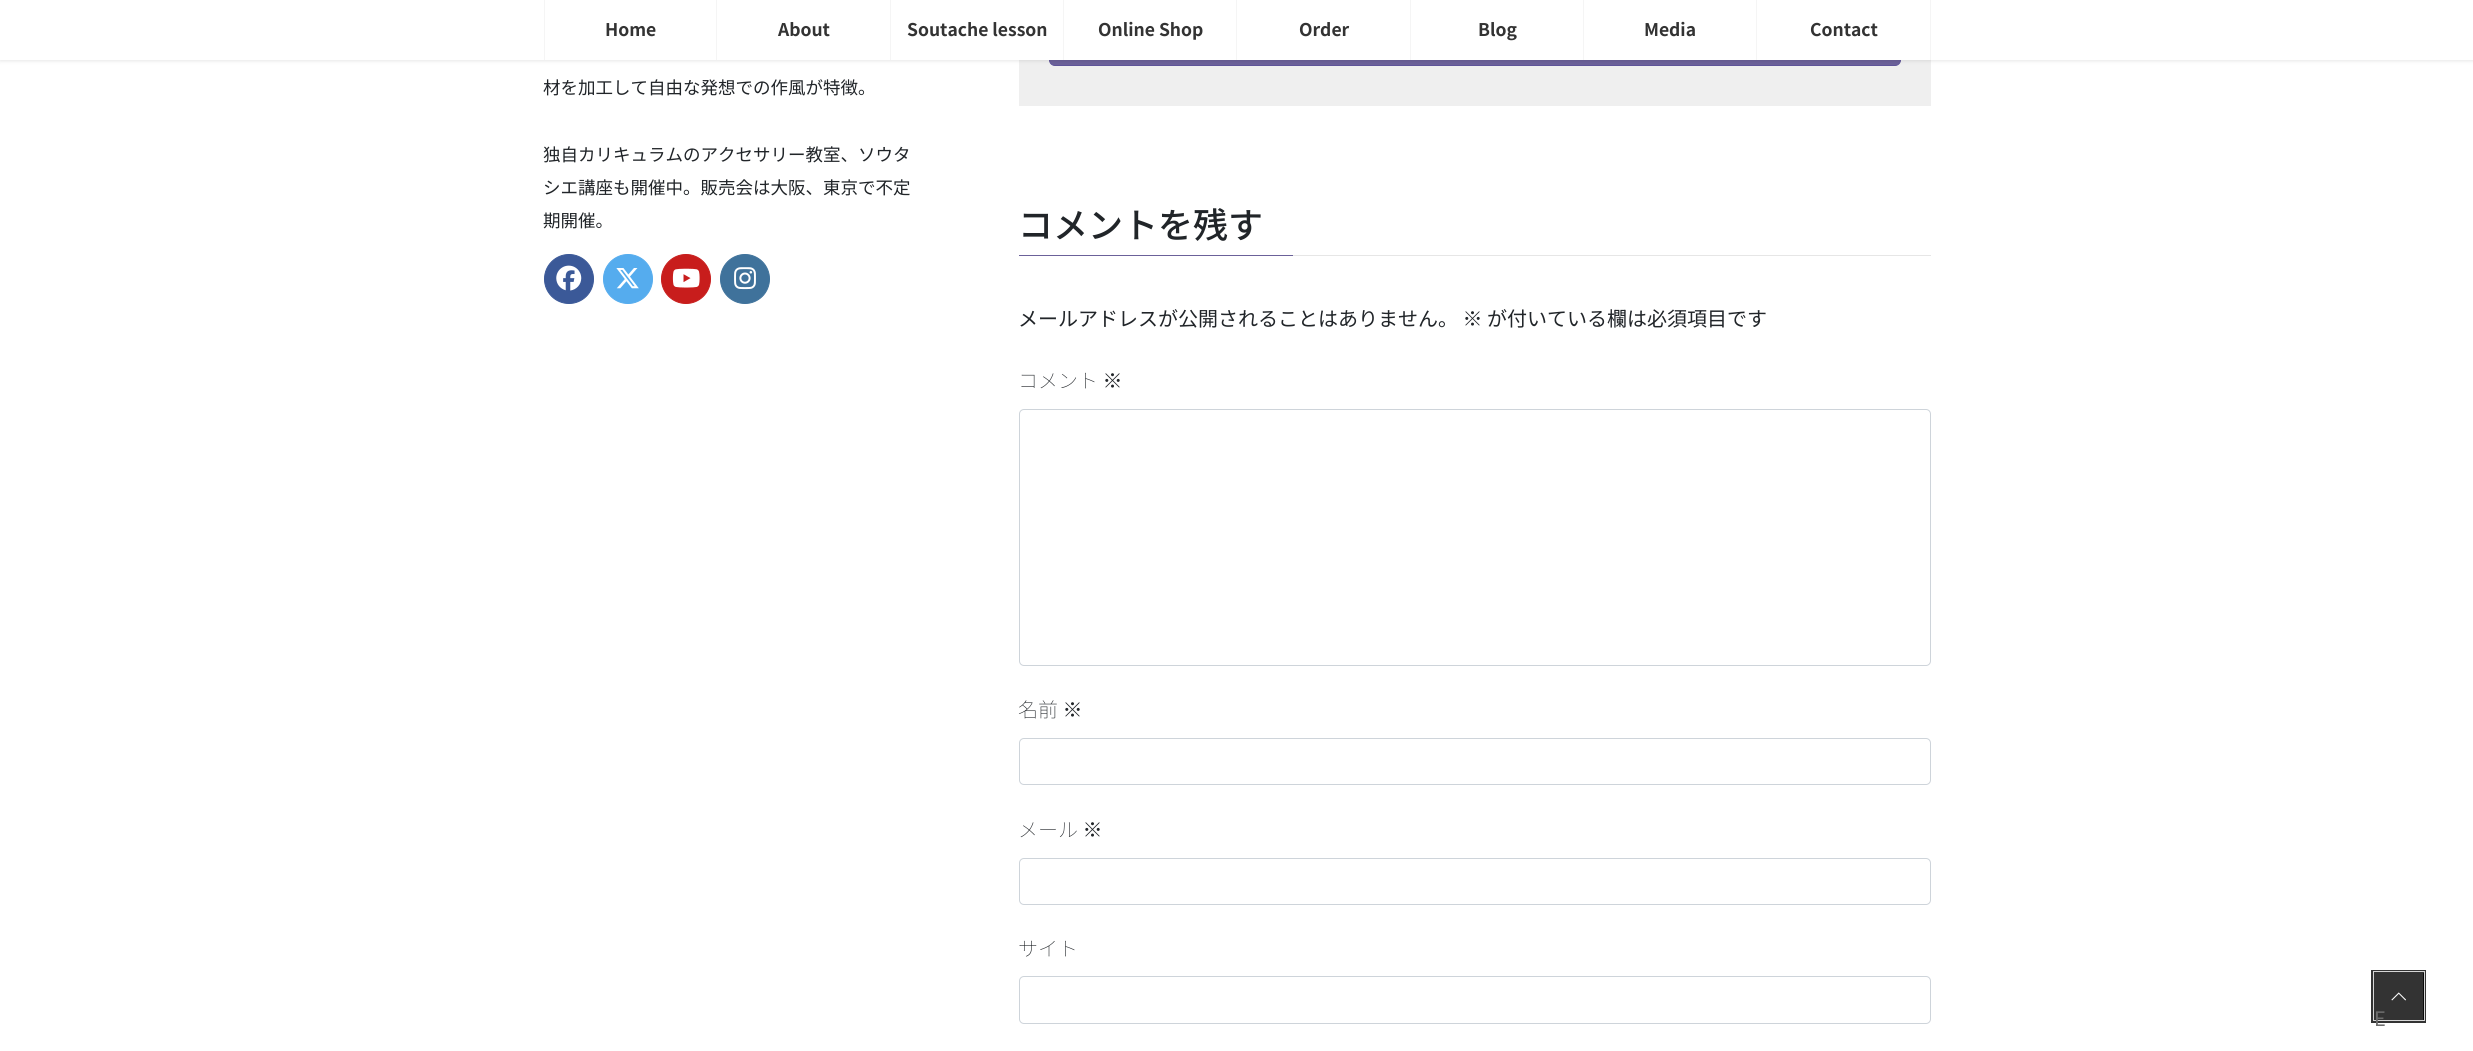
#include <cairo.h>
#include <math.h>
#include <stddef.h>


static void rgb(cairo_t *cr, int r, int g, int b)
{
	cairo_set_source_rgb(cr, r / 255.0, g / 255.0, b / 255.0);
}

static void face(cairo_t *cr, const char *family, double size, int italic, int bold)
{
	cairo_select_font_face(cr, family, italic ? CAIRO_FONT_SLANT_ITALIC : CAIRO_FONT_SLANT_NORMAL,
		bold ? CAIRO_FONT_WEIGHT_BOLD : CAIRO_FONT_WEIGHT_NORMAL);
	cairo_set_font_size(cr, size);
}

static void label(cairo_t *cr, double x, double y, const char *s)
{
	cairo_move_to(cr, x, y);
	cairo_show_text(cr, s);
}

static void rect(cairo_t *cr, double x, double y, double w, double h)
{
	cairo_rectangle(cr, x, y, w, h);
	cairo_fill(cr);
}

static void rrect(cairo_t *cr, double x, double y, double w, double h, double r)
{
	cairo_new_sub_path(cr);
	cairo_arc(cr, x + w - r, y + h - r, r, 0, M_PI / 2);
	cairo_arc(cr, x + r, y + h - r, r, M_PI / 2, M_PI);
	cairo_arc(cr, x + r, y + r, r, M_PI, 1.5 * M_PI);
	cairo_arc(cr, x + w - r, y + r, r, 1.5 * M_PI, 2 * M_PI);
	cairo_close_path(cr);
}

static void soft_shadow(cairo_t *cr, double x, double y, double w, double h, double r, double blur, double alpha)
{
	cairo_push_group_with_content(cr, CAIRO_CONTENT_ALPHA);
	cairo_set_operator(cr, CAIRO_OPERATOR_SOURCE);
	for (int i = 15; i >= -15 && fmin(w, h) + blur * i / 3 > 0; i -= 2) {
		double e = blur * i / 6;
		cairo_set_source_rgba(cr, 0, 0, 0, alpha * erfc((i - 1) / 8.5) / 2);
		rrect(cr, x - e, y - e, w + 2 * e, h + 2 * e, fmax(0, fmin(r + e + blur * .6, fmin(w, h) / 2 + e)));
		cairo_fill(cr);
	}
	cairo_pattern_t *soft = cairo_pop_group(cr);
	cairo_mask(cr, soft);
	cairo_pattern_destroy(soft);
}

static void image(cairo_t *cr, const char *path, double x, double y, double w, double h)
{
	cairo_surface_t *image = cairo_image_surface_create_from_png(path);
	cairo_save(cr);
	cairo_set_source_surface(cr, image, x, y);
	cairo_rectangle(cr, x, y, w, h);
	cairo_fill(cr);
	cairo_restore(cr);
	cairo_surface_destroy(image);
}

static void draw(cairo_t *cr) {
	rgb(cr, 255, 255, 255);
	cairo_paint(cr);
	rgb(cr, 239, 239, 239);
	rect(cr, 1019, 60, 912, 46);
	rgb(cr, 107, 97, 153);
	rrect(cr, 1049.5, 6.5, 851, 59, 5.5);
	cairo_fill_preserve(cr);
	rgb(cr, 95, 84, 153);
	cairo_set_line_width(cr, 1);
	cairo_stroke(cr);
	rgb(cr, 0, 0, 0);
	soft_shadow(cr, 0, 1, 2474, 60, 0, 2, 0.1);
	rgb(cr, 255, 255, 255);
	rect(cr, 0, 0, 2473, 60);
	rgb(cr, 245, 245, 245);
	rect(cr, 544, 0, 1, 60);
	face(cr, "Noto Sans JP", 17.5, 0, 1);
	rgb(cr, 51, 51, 51);
	label(cr, 605, 36, "Home");
	rgb(cr, 245, 245, 245);
	rect(cr, 716, 0, 1, 60);
	rgb(cr, 51, 51, 51);
	label(cr, 778, 36, "About");
	rgb(cr, 245, 245, 245);
	rect(cr, 890, 0, 1, 60);
	rgb(cr, 51, 51, 51);
	label(cr, 907, 36, "Soutache lesson");
	rgb(cr, 245, 245, 245);
	rect(cr, 1063, 0, 1, 60);
	rgb(cr, 51, 51, 51);
	label(cr, 1098, 36, "Online Shop");
	rgb(cr, 245, 245, 245);
	rect(cr, 1236, 0, 1, 60);
	rgb(cr, 51, 51, 51);
	label(cr, 1299, 36, "Order");
	rgb(cr, 245, 245, 245);
	rect(cr, 1410, 0, 1, 60);
	rgb(cr, 51, 51, 51);
	label(cr, 1478, 36, "Blog");
	rgb(cr, 245, 245, 245);
	rect(cr, 1583, 0, 1, 60);
	rgb(cr, 51, 51, 51);
	label(cr, 1644, 36, "Media");
	rgb(cr, 245, 245, 245);
	rect(cr, 1930, 0, 1, 60);
	rect(cr, 1756, 0, 1, 60);
	rgb(cr, 51, 51, 51);
	label(cr, 1810, 36, "Contact");
	face(cr, "Noto Sans JP", 17.5, 0, 0);
	rgb(cr, 33, 37, 41);
	label(cr, 543, 94, "材を加工して自由な発想での作風が特徴。");
	label(cr, 543, 161, "独自カリキュラムのアクセサリー教室、ソウタ");
	label(cr, 543, 194, "シエ講座も開催中。販売会は大阪、東京で不定");
	label(cr, 543, 227, "期開催。");
	rgb(cr, 59, 89, 152);
	cairo_new_path(cr);
	cairo_arc(cr, 569, 279, 24.5, 0, 2 * M_PI);
	cairo_fill_preserve(cr);
	cairo_stroke(cr);
	image(cr, "image0.png", 556, 265, 26, 26);
	rgb(cr, 85, 172, 238);
	cairo_arc(cr, 628, 279, 24.5, 0, 2 * M_PI);
	cairo_fill_preserve(cr);
	cairo_stroke(cr);
	image(cr, "image1.png", 616, 268, 23, 21);
	rgb(cr, 200, 29, 28);
	cairo_arc(cr, 686, 279, 24.5, 0, 2 * M_PI);
	cairo_fill_preserve(cr);
	cairo_stroke(cr);
	image(cr, "image2.png", 672, 268, 28, 20);
	rgb(cr, 63, 114, 155);
	cairo_arc(cr, 745, 279, 24.5, 0, 2 * M_PI);
	cairo_fill_preserve(cr);
	cairo_stroke(cr);
	image(cr, "image3.png", 734, 267, 22, 23);
	rgb(cr, 230, 230, 230);
	rect(cr, 1293, 255, 638, 1);
	face(cr, "Noto Sans JP Medium", 35, 0, 0);
	rgb(cr, 33, 37, 41);
	label(cr, 1018, 238, "コメントを残す");
	rgb(cr, 107, 97, 153);
	rect(cr, 1019, 255, 274, 1);
	face(cr, "Noto Sans JP", 20, 0, 0);
	rgb(cr, 33, 37, 41);
	label(cr, 1018, 326, "メールアドレスが公開されることはありません。 ※ が付いている欄は必須項目です");
	face(cr, "Noto Sans JP Thin", 20, 0, 0);
	label(cr, 1018, 388, "コメント ※");
	rrect(cr, 1019.5, 409.5, 911, 256, 4.5);
	rgb(cr, 206, 212, 218);
	cairo_stroke(cr);
	rgb(cr, 33, 37, 41);
	label(cr, 1018, 717, "名前 ※");
	rrect(cr, 1019.5, 738.5, 911, 46, 4.5);
	rgb(cr, 206, 212, 218);
	cairo_stroke(cr);
	rgb(cr, 33, 37, 41);
	label(cr, 1018, 837, "メール ※");
	rrect(cr, 1019.5, 858.5, 911, 46, 4.5);
	rgb(cr, 206, 212, 218);
	cairo_stroke(cr);
	rgb(cr, 33, 37, 41);
	label(cr, 1018, 956, "サイト");
	rrect(cr, 1019.5, 976.5, 911, 47, 4.5);
	rgb(cr, 206, 212, 218);
	cairo_stroke(cr);
	cairo_rectangle(cr, 2372.5, 971.5, 52, 50);
	rgb(cr, 51, 51, 51);
	cairo_set_line_width(cr, 3);
	cairo_stroke(cr);
	cairo_rectangle(cr, 2373.5, 971.5, 51, 49);
	rgb(cr, 214, 214, 214);
	cairo_set_line_width(cr, 1);
	cairo_stroke(cr);
	cairo_set_source_rgba(cr, 0, 0, 0, 0.8);
	rect(cr, 2374, 973, 50, 47);
	image(cr, "image4.png", 2391, 992, 15, 9);
	face(cr, "Noto Sans JP", 20, 0, 0);
	rgb(cr, 108, 108, 108);
	label(cr, 2374, 1026, "E");
}

int main(void) {
	cairo_surface_t *surface = cairo_image_surface_create(CAIRO_FORMAT_RGB24, 2473, 1051);
	cairo_t *cr = cairo_create(surface);
	cairo_font_options_t *options = cairo_font_options_create();
	cairo_font_options_set_hint_metrics(options, CAIRO_HINT_METRICS_OFF);
	cairo_font_options_set_hint_style(options, CAIRO_HINT_STYLE_NONE);
	cairo_set_font_options(cr, options);
	cairo_set_miter_limit(cr, 4);
	draw(cr);
	cairo_surface_write_to_png(surface, "render.png");
	cairo_font_options_destroy(options);
	cairo_destroy(cr);
	cairo_surface_destroy(surface);
	return 0;
}
